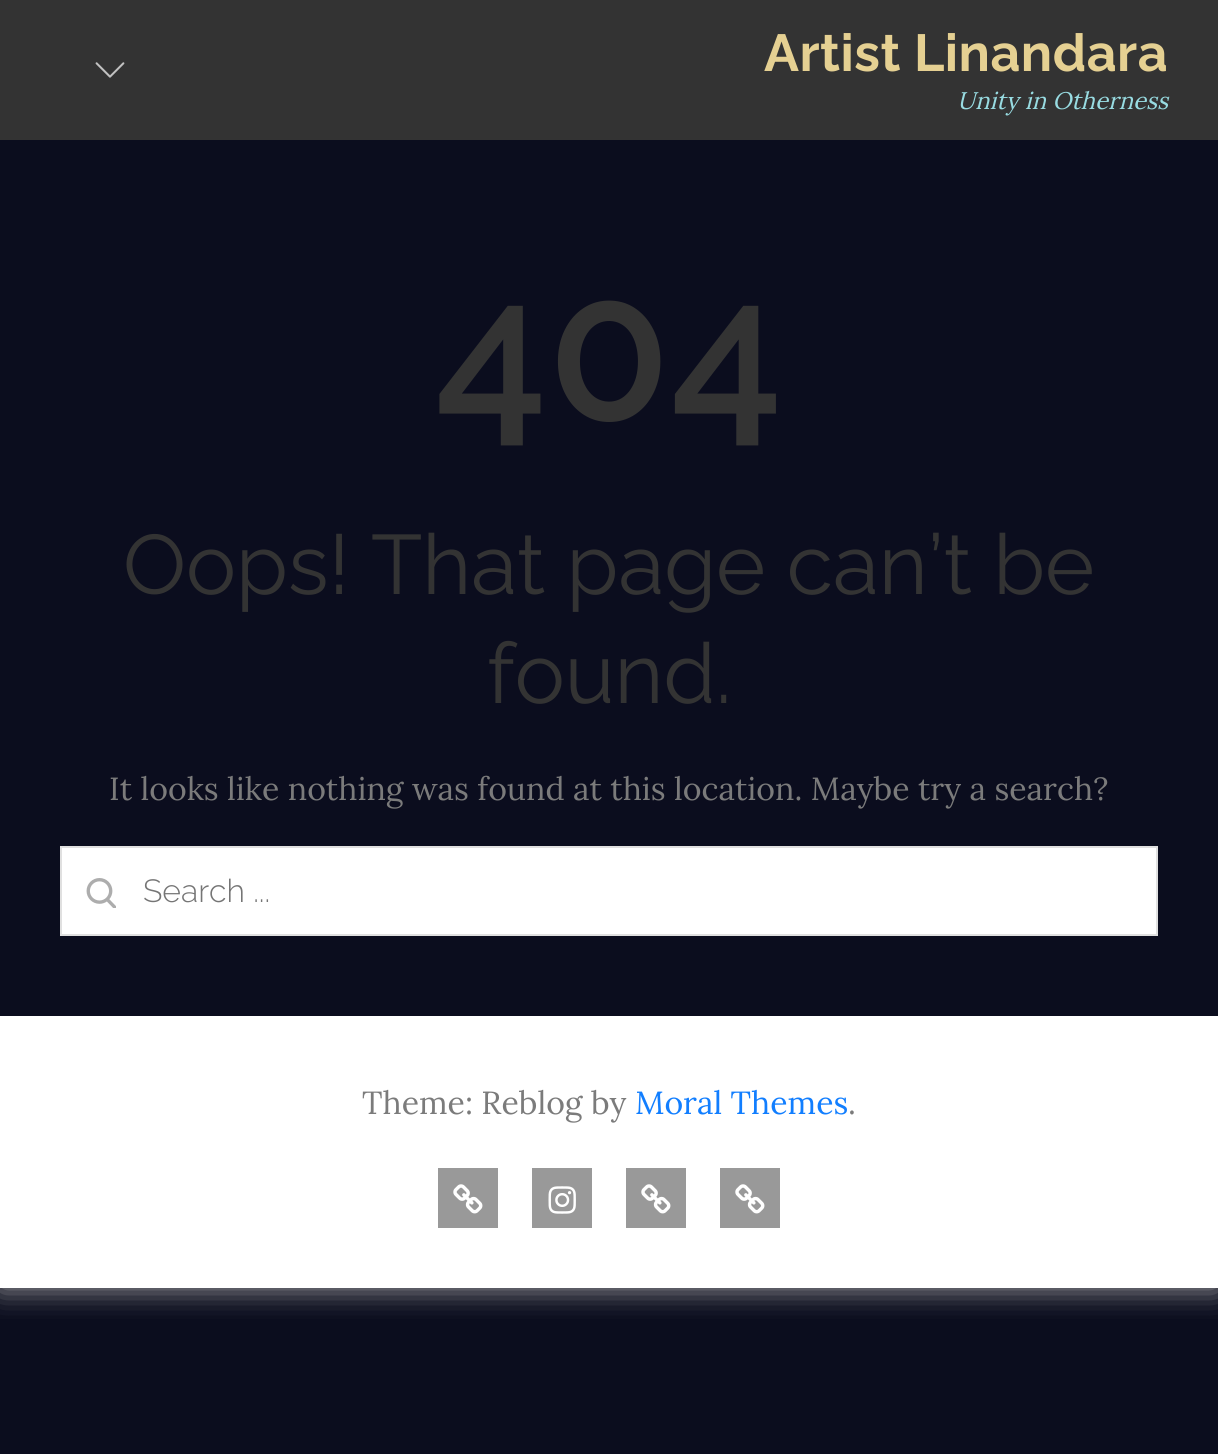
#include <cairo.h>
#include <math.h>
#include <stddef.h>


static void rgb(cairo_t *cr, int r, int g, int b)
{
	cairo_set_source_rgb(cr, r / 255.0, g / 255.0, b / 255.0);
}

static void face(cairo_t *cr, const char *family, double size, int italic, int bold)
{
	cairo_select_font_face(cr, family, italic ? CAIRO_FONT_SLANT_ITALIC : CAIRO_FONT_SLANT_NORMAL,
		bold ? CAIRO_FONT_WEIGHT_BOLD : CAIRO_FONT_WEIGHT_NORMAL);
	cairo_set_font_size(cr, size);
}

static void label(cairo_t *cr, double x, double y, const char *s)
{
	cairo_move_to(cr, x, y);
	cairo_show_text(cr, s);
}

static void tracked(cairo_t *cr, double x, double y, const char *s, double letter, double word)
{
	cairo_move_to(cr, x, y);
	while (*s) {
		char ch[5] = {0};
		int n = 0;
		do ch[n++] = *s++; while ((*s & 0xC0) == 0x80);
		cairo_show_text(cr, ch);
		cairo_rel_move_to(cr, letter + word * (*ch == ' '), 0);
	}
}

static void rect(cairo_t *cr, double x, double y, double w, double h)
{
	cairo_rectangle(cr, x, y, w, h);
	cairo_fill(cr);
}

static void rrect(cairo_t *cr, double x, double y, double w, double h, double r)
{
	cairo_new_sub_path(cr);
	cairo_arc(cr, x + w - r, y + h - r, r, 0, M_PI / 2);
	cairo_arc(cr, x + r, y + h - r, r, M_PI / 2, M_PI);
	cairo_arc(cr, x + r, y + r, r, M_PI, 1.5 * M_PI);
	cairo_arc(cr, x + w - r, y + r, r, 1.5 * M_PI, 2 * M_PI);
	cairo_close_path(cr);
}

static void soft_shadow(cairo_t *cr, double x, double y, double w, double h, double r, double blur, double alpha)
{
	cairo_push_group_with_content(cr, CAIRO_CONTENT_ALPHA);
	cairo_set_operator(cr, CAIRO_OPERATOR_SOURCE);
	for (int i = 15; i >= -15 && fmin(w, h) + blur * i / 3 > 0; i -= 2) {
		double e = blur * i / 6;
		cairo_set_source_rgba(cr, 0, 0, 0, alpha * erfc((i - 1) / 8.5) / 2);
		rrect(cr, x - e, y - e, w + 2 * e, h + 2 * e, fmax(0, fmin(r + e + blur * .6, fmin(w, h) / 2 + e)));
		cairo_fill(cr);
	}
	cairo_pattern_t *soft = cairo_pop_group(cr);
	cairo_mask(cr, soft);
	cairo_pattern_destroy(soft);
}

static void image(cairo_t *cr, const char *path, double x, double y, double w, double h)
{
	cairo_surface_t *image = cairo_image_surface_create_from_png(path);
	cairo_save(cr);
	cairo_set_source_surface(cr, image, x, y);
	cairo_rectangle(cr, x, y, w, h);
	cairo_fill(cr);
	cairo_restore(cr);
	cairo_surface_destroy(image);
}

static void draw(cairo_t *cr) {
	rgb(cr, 11, 13, 30);
	cairo_paint(cr);
	cairo_save(cr);
	cairo_rectangle(cr, 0, 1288, 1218, 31);
	cairo_clip(cr);
	rgb(cr, 170, 170, 170);
	soft_shadow(cr, 0, 0, 1218, 1288, 0, 15, 1);
	cairo_restore(cr);
	rgb(cr, 51, 51, 51);
	rect(cr, 0, 0, 1218, 140);
	image(cr, "image0.png", 95, 62, 30, 16);
	face(cr, "Raleway", 52, 0, 1);
	rgb(cr, 229, 208, 146);
	tracked(cr, 764, 71, "Artist Linandara", 0.5, 0);
	face(cr, "Lora", 24, 1, 0);
	rgb(cr, 152, 220, 226);
	label(cr, 957, 109, "Unity in Otherness");
	face(cr, "Raleway SemiBold", 200, 0, 0);
	rgb(cr, 51, 51, 51);
	label(cr, 435, 420, "404");
	face(cr, "Raleway", 84, 0, 0);
	label(cr, 123, 594, "Oops! That page can’t be");
	label(cr, 487, 703, "found.");
	face(cr, "Lora", 32, 0, 0);
	rgb(cr, 123, 123, 123);
	label(cr, 109, 800, "It looks like nothing was found at this location. Maybe try a search?");
	rgb(cr, 255, 255, 255);
	cairo_rectangle(cr, 61, 847, 1096, 88);
	cairo_fill_preserve(cr);
	rgb(cr, 224, 224, 224);
	cairo_stroke(cr);
	image(cr, "image1.png", 86, 878, 30, 30);
	face(cr, "Raleway Light", 32, 0, 0);
	rgb(cr, 117, 117, 117);
	label(cr, 143, 902, "Search ...");
	rgb(cr, 255, 255, 255);
	rect(cr, 0, 1016, 1218, 272);
	face(cr, "Lora", 32, 0, 0);
	rgb(cr, 123, 123, 123);
	label(cr, 362, 1114, "Theme: Reblog by");
	rgb(cr, 17, 126, 255);
	label(cr, 635, 1114, "Moral Themes");
	rgb(cr, 123, 123, 123);
	label(cr, 848, 1114, ".");
	rgb(cr, 153, 153, 153);
	rect(cr, 438, 1168, 60, 60);
	image(cr, "image2.png", 453, 1184, 30, 30);
	rect(cr, 532, 1168, 60, 60);
	image(cr, "image3.png", 548, 1186, 28, 28);
	rect(cr, 626, 1168, 60, 60);
	image(cr, "image2.png", 641, 1184, 30, 30);
	rect(cr, 720, 1168, 60, 60);
	image(cr, "image2.png", 735, 1184, 30, 30);
}

int main(void) {
	cairo_surface_t *surface = cairo_image_surface_create(CAIRO_FORMAT_RGB24, 1218, 1454);
	cairo_t *cr = cairo_create(surface);
	cairo_font_options_t *options = cairo_font_options_create();
	cairo_font_options_set_hint_metrics(options, CAIRO_HINT_METRICS_OFF);
	cairo_font_options_set_hint_style(options, CAIRO_HINT_STYLE_NONE);
	cairo_set_font_options(cr, options);
	cairo_set_miter_limit(cr, 4);
	draw(cr);
	cairo_surface_write_to_png(surface, "render.png");
	cairo_font_options_destroy(options);
	cairo_destroy(cr);
	cairo_surface_destroy(surface);
	return 0;
}
